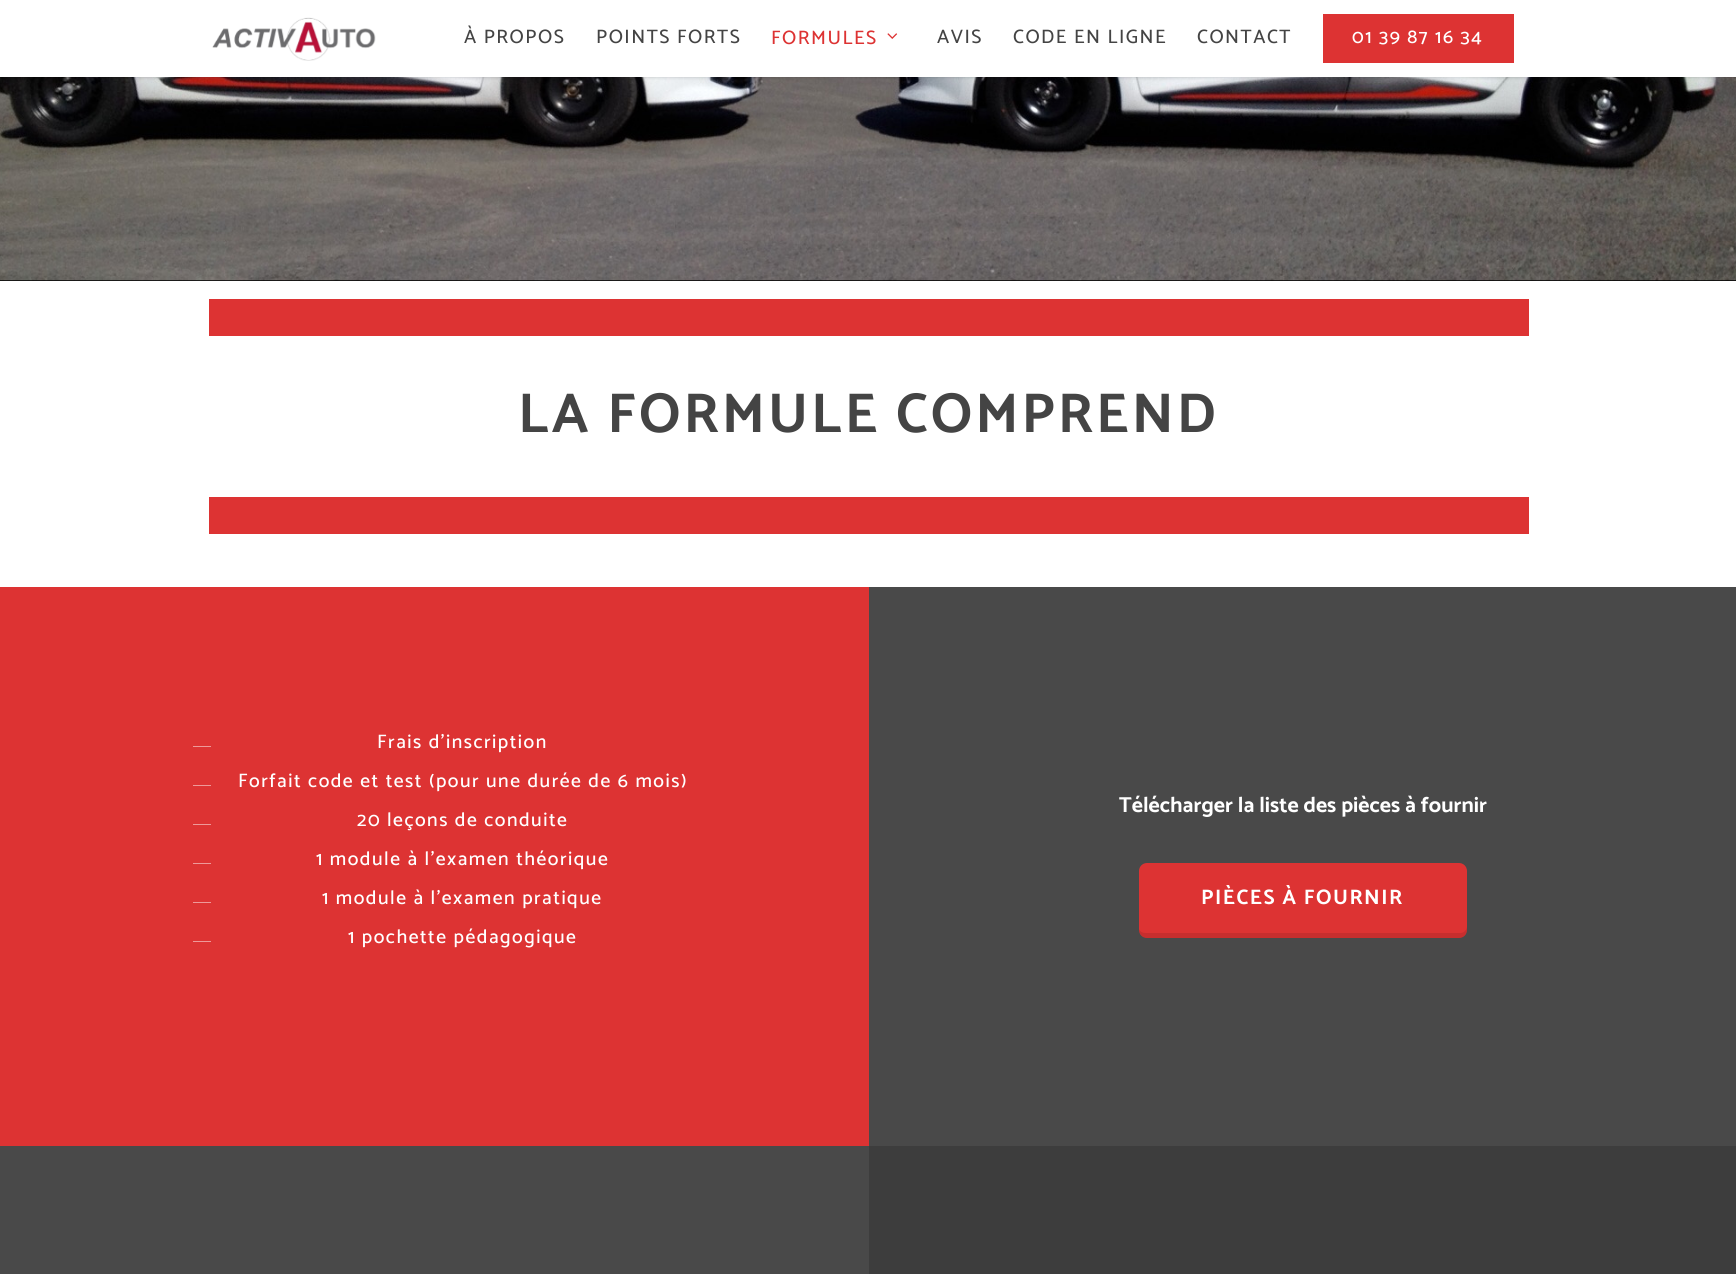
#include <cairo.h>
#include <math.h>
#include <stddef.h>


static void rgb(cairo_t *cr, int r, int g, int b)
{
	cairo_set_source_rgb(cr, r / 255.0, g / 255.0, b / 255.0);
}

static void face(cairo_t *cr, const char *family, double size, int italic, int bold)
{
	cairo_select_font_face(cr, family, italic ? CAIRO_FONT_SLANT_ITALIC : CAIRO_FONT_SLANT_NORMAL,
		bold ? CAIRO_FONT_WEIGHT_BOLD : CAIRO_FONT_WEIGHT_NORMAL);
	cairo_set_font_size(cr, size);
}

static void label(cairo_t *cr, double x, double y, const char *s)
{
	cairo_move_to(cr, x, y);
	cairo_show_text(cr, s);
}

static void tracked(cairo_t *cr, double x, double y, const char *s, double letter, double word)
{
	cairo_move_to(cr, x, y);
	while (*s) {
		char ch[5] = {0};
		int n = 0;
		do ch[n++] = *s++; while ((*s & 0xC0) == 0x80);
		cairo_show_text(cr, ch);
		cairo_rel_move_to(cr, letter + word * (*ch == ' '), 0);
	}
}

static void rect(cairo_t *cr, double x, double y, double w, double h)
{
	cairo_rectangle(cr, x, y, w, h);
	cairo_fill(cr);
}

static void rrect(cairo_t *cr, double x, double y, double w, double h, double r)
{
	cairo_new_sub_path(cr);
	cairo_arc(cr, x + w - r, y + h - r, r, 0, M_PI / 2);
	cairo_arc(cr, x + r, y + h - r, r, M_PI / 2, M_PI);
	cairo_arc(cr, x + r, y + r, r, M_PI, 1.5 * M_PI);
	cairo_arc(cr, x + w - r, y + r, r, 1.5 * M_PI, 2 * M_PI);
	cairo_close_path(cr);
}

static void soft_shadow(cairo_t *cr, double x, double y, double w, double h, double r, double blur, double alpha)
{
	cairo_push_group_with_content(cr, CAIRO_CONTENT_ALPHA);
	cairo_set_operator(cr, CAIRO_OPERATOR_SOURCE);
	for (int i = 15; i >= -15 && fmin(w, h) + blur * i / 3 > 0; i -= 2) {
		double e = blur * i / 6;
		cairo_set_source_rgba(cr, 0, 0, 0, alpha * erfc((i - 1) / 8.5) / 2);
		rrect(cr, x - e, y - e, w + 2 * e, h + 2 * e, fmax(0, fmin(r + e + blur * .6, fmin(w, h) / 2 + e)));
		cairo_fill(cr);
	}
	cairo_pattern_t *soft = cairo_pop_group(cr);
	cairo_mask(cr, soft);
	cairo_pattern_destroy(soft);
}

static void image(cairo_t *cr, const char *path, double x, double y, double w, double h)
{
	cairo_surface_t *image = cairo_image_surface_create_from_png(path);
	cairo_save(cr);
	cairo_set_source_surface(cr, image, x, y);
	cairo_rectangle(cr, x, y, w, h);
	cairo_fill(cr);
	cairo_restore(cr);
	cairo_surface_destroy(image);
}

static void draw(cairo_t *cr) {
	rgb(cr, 255, 255, 255);
	cairo_paint(cr);
	rgb(cr, 0, 0, 0);
	rect(cr, 0, 280, 1736, 1);
	image(cr, "image2.png", 0, 77, 1736, 204);
	rgb(cr, 0, 0, 0);
	soft_shadow(cr, 0, 0, 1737, 77, 0, 2, 0.22);
	rgb(cr, 255, 255, 255);
	rect(cr, 0, 0, 1736, 77);
	image(cr, "image0.png", 212, 17, 164, 44);
	face(cr, "Catamaran Medium", 19.5, 0, 0);
	rgb(cr, 68, 68, 68);
	tracked(cr, 464, 43, "À PROPOS", 1.5, 0);
	tracked(cr, 596, 43, "POINTS FORTS", 1.5, 0);
	rgb(cr, 221, 51, 51);
	tracked(cr, 771, 44, "FORMULES", 1.5, 0);
	image(cr, "image1.png", 887, 33, 11, 6);
	rgb(cr, 68, 68, 68);
	tracked(cr, 937, 43, "AVIS", 1.5, 0);
	tracked(cr, 1013, 43, "CODE EN LIGNE", 1.5, 0);
	tracked(cr, 1197, 43, "CONTACT", 1.5, 0);
	rgb(cr, 221, 51, 51);
	rect(cr, 1323, 14, 191, 49);
	rgb(cr, 255, 255, 255);
	tracked(cr, 1352, 43, "01 39 87 16 34", 1.5, 0);
	rgb(cr, 221, 51, 51);
	rect(cr, 209, 299, 1320, 37);
	face(cr, "Catamaran", 56.25, 0, 1);
	rgb(cr, 68, 68, 68);
	tracked(cr, 518, 432, "LA FORMULE COMPREND", 3, 0);
	rgb(cr, 221, 51, 51);
	rect(cr, 209, 497, 1320, 37);
	rect(cr, 0, 587, 869, 559);
	rgb(cr, 255, 255, 255);
	cairo_new_path(cr);
	cairo_move_to(cr, 193, 746);
	cairo_line_to(cr, 211, 746);
	cairo_line_to(cr, 211, 746.5);
	cairo_line_to(cr, 193, 746.5);
	cairo_close_path(cr);
	cairo_fill(cr);
	face(cr, "Catamaran Medium", 19.5, 0, 0);
	tracked(cr, 377, 748, "Frais d’inscription", 1.5, 0);
	cairo_new_path(cr);
	cairo_move_to(cr, 193, 785);
	cairo_line_to(cr, 211, 785);
	cairo_line_to(cr, 211, 785.5);
	cairo_line_to(cr, 193, 785.5);
	cairo_close_path(cr);
	cairo_fill(cr);
	tracked(cr, 238, 787, "Forfait code et test (pour une durée de 6 mois)", 1.5, 0);
	cairo_new_path(cr);
	cairo_move_to(cr, 193, 824);
	cairo_line_to(cr, 211, 824);
	cairo_line_to(cr, 211, 824.5);
	cairo_line_to(cr, 193, 824.5);
	cairo_close_path(cr);
	cairo_fill(cr);
	tracked(cr, 357, 826, "20 leçons de conduite", 1.5, 0);
	cairo_new_path(cr);
	cairo_move_to(cr, 193, 863);
	cairo_line_to(cr, 211, 863);
	cairo_line_to(cr, 211, 863.5);
	cairo_line_to(cr, 193, 863.5);
	cairo_close_path(cr);
	cairo_fill(cr);
	tracked(cr, 316, 865, "1 module à l’examen théorique", 1.5, 0);
	cairo_new_path(cr);
	cairo_move_to(cr, 193, 902);
	cairo_line_to(cr, 211, 902);
	cairo_line_to(cr, 211, 902.5);
	cairo_line_to(cr, 193, 902.5);
	cairo_close_path(cr);
	cairo_fill(cr);
	tracked(cr, 322, 904, "1 module à l’examen pratique", 1.5, 0);
	cairo_new_path(cr);
	cairo_move_to(cr, 193, 941);
	cairo_line_to(cr, 211, 941);
	cairo_line_to(cr, 211, 941.5);
	cairo_line_to(cr, 193, 941.5);
	cairo_close_path(cr);
	cairo_fill(cr);
	tracked(cr, 348, 943, "1 pochette pédagogique", 1.5, 0);
	rgb(cr, 73, 73, 73);
	rect(cr, 869, 587, 867, 559);
	face(cr, "Catamaran", 21.7, 0, 1);
	rgb(cr, 255, 255, 255);
	label(cr, 1119, 812, "Télécharger la liste des pièces à fournir");
	rgb(cr, 221, 51, 51);
	rrect(cr, 1139, 863, 328, 75, 8);
	cairo_fill(cr);
	cairo_set_source_rgba(cr, 0, 0, 0, 0.1);
	cairo_new_path(cr);
	cairo_move_to(cr, 1139, 929);
	cairo_line_to(cr, 1139, 930);
	cairo_curve_to(cr, 1139, 934, 1143, 938, 1147, 938);
	cairo_line_to(cr, 1459, 938);
	cairo_curve_to(cr, 1463, 938, 1467, 934, 1467, 930);
	cairo_line_to(cr, 1467, 926);
	cairo_curve_to(cr, 1467, 930, 1464, 933, 1460, 933);
	cairo_line_to(cr, 1146, 933);
	cairo_curve_to(cr, 1143, 933, 1140, 932, 1139, 929);
	cairo_close_path(cr);
	cairo_fill(cr);
	face(cr, "Catamaran", 21, 0, 1);
	rgb(cr, 255, 255, 255);
	tracked(cr, 1201, 904, "PIÈCES À FOURNIR", 1.5, 0);
	rgb(cr, 73, 73, 73);
	rect(cr, 0, 1146, 869, 128);
	rgb(cr, 61, 61, 61);
	rect(cr, 869, 1146, 867, 128);
}

int main(void) {
	cairo_surface_t *surface = cairo_image_surface_create(CAIRO_FORMAT_RGB24, 1736, 1274);
	cairo_t *cr = cairo_create(surface);
	cairo_font_options_t *options = cairo_font_options_create();
	cairo_font_options_set_hint_metrics(options, CAIRO_HINT_METRICS_OFF);
	cairo_font_options_set_hint_style(options, CAIRO_HINT_STYLE_NONE);
	cairo_set_font_options(cr, options);
	cairo_set_miter_limit(cr, 4);
	draw(cr);
	cairo_surface_write_to_png(surface, "render.png");
	cairo_font_options_destroy(options);
	cairo_destroy(cr);
	cairo_surface_destroy(surface);
	return 0;
}
